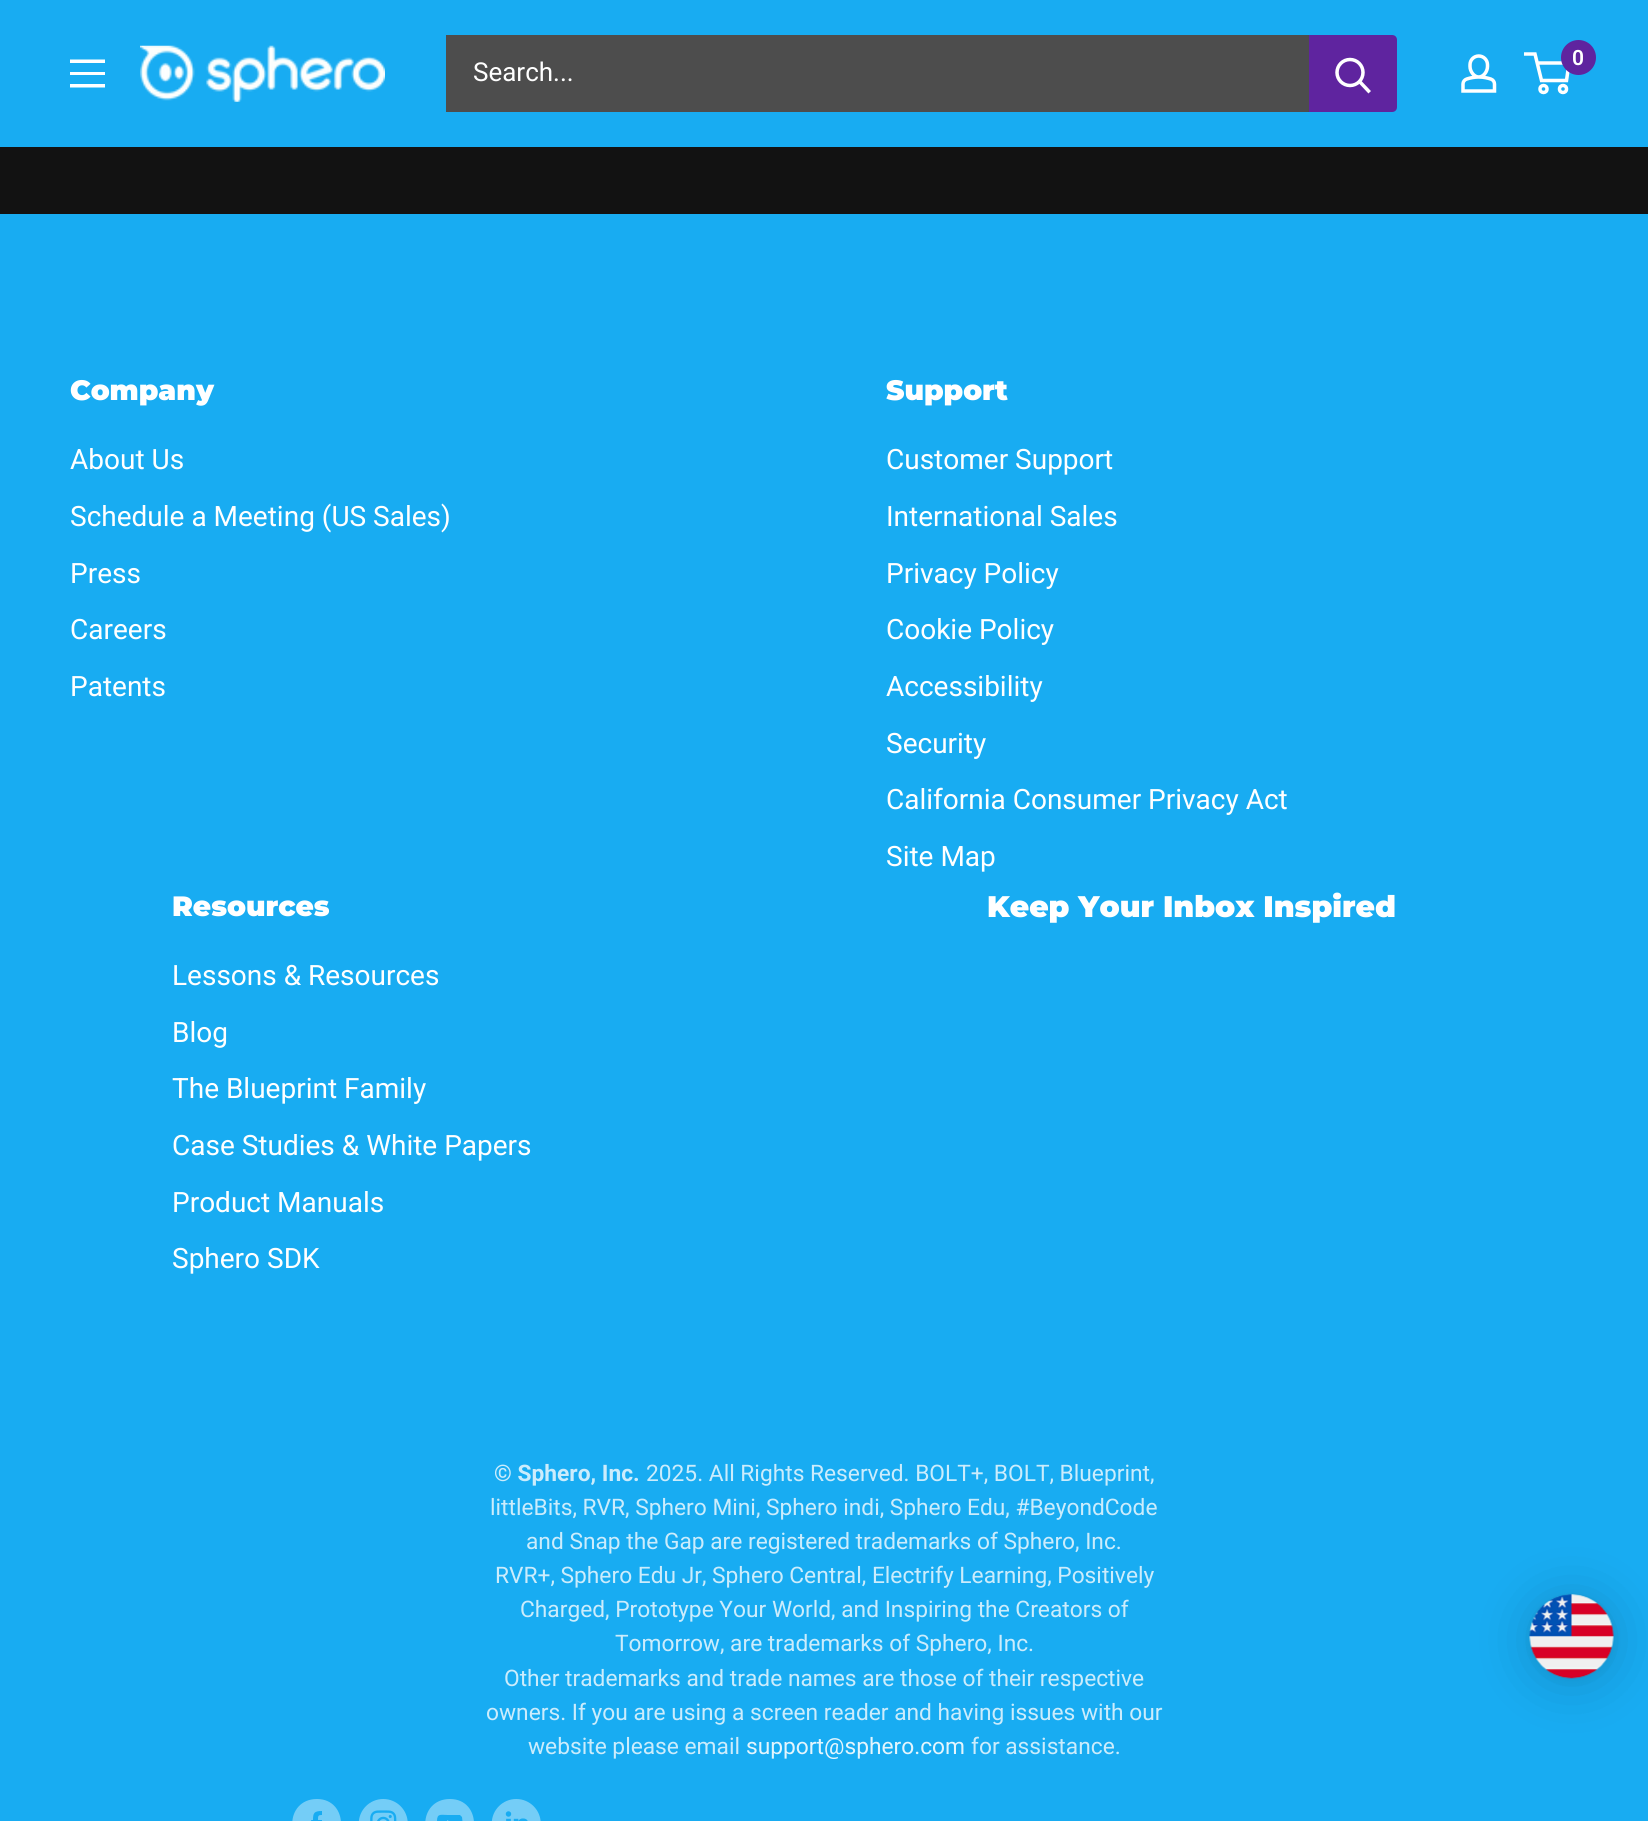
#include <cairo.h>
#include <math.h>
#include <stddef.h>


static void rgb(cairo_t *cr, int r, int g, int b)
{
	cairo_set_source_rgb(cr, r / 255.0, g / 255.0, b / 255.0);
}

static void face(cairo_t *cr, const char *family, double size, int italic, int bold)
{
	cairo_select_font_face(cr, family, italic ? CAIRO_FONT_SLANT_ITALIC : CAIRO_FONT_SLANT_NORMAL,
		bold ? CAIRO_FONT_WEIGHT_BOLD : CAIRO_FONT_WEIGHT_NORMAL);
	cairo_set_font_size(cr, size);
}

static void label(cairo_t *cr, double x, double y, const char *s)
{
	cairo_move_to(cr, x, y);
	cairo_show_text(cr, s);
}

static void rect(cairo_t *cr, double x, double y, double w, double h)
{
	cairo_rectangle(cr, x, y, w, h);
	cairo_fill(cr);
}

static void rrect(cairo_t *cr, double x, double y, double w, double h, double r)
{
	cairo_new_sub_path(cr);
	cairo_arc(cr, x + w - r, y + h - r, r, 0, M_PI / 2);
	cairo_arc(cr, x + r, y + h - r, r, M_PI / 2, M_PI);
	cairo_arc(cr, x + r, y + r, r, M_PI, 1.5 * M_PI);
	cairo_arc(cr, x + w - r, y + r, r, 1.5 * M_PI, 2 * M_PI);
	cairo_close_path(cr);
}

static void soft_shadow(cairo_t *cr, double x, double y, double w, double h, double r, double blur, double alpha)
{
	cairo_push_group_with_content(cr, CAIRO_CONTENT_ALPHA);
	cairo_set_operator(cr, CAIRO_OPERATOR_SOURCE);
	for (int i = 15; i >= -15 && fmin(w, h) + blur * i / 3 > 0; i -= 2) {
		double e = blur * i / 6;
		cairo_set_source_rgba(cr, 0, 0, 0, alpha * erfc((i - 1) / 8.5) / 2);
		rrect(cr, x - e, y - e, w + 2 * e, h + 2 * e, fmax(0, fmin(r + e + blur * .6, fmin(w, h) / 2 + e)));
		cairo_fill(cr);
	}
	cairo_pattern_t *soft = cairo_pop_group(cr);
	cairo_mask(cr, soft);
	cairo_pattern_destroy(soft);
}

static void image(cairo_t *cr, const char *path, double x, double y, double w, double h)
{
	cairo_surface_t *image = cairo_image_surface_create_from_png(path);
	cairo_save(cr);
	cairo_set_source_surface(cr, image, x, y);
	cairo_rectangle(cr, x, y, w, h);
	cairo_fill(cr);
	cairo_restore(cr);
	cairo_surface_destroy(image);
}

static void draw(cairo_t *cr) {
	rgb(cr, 18, 18, 18);
	cairo_paint(cr);
	rgb(cr, 24, 172, 242);
	rect(cr, 0, 0, 1648, 147);
	rgb(cr, 255, 255, 255);
	cairo_set_fill_rule(cr, CAIRO_FILL_RULE_EVEN_ODD);
	cairo_new_path(cr);
	cairo_move_to(cr, 70, 84);
	cairo_line_to(cr, 105, 84);
	cairo_line_to(cr, 105, 87.5);
	cairo_line_to(cr, 70, 87.5);
	cairo_close_path(cr);
	cairo_move_to(cr, 70, 59.5);
	cairo_line_to(cr, 105, 59.5);
	cairo_line_to(cr, 105, 63);
	cairo_line_to(cr, 70, 63);
	cairo_close_path(cr);
	cairo_move_to(cr, 70, 72);
	cairo_line_to(cr, 105, 72);
	cairo_line_to(cr, 105, 75);
	cairo_line_to(cr, 70, 75);
	cairo_close_path(cr);
	cairo_fill(cr);
	image(cr, "image0.png", 140, 45, 245, 57);
	rgb(cr, 77, 77, 77);
	rect(cr, 446, 35, 863, 77);
	face(cr, "Roboto", 26, 0, 0);
	rgb(cr, 255, 255, 255);
	label(cr, 473, 81, "Search...");
	rgb(cr, 95, 36, 159);
	cairo_new_path(cr);
	cairo_move_to(cr, 1309, 35);
	cairo_line_to(cr, 1392, 35);
	cairo_curve_to(cr, 1395, 35, 1397, 37, 1397, 40);
	cairo_line_to(cr, 1397, 107);
	cairo_curve_to(cr, 1397, 110, 1395, 112, 1392, 112);
	cairo_line_to(cr, 1309, 112);
	cairo_close_path(cr);
	cairo_fill(cr);
	cairo_new_path(cr);
	cairo_move_to(cr, 1368.5, 91);
	cairo_line_to(cr, 1360, 82);
	rgb(cr, 255, 255, 255);
	cairo_set_line_width(cr, 3.5);
	cairo_set_line_cap(cr, CAIRO_LINE_CAP_SQUARE);
	cairo_stroke(cr);
	cairo_arc(cr, 1350, 72.5, 13, 0, 2 * M_PI);
	cairo_set_line_cap(cr, CAIRO_LINE_CAP_BUTT);
	cairo_stroke(cr);
	image(cr, "image1.png", 1461, 54, 36, 39);
	cairo_arc(cr, 1543.5, 89, 3.5, 0, 2 * M_PI);
	cairo_stroke(cr);
	cairo_arc(cr, 1563, 89, 3.5, 0, 2 * M_PI);
	cairo_stroke(cr);
	cairo_new_path(cr);
	cairo_move_to(cr, 1537, 63);
	cairo_line_to(cr, 1569, 63);
	cairo_line_to(cr, 1566.5, 80.5);
	cairo_line_to(cr, 1541.5, 80.5);
	cairo_line_to(cr, 1535, 54);
	cairo_line_to(cr, 1524, 54);
	cairo_stroke(cr);
	rgb(cr, 95, 36, 159);
	cairo_arc(cr, 1578.5, 57.5, 17.5, 0, 2 * M_PI);
	cairo_fill(cr);
	face(cr, "Roboto SemiBold", 21, 0, 0);
	rgb(cr, 255, 255, 255);
	label(cr, 1572, 65, "0");
	rgb(cr, 24, 172, 242);
	rect(cr, 0, 214, 1648, 1607);
	face(cr, "Montserrat Black", 28, 0, 0);
	rgb(cr, 255, 255, 255);
	label(cr, 70, 400, "Company");
	face(cr, "Roboto", 28, 0, 0);
	label(cr, 70, 469, "About Us");
	label(cr, 70, 526, "Schedule a Meeting (US Sales)");
	label(cr, 70, 583, "Press");
	label(cr, 70, 639, "Careers");
	label(cr, 70, 696, "Patents");
	face(cr, "Montserrat Black", 28, 0, 0);
	label(cr, 886, 400, "Support");
	face(cr, "Roboto", 28, 0, 0);
	label(cr, 886, 469, "Customer Support");
	label(cr, 886, 526, "International Sales");
	label(cr, 886, 583, "Privacy Policy");
	label(cr, 886, 639, "Cookie Policy");
	label(cr, 886, 696, "Accessibility");
	label(cr, 886, 753, "Security");
	label(cr, 886, 809, "California Consumer Privacy Act");
	label(cr, 886, 866, "Site Map");
	face(cr, "Montserrat Black", 28, 0, 0);
	label(cr, 172, 916, "Resources");
	face(cr, "Roboto", 28, 0, 0);
	label(cr, 172, 985, "Lessons & Resources");
	label(cr, 172, 1042, "Blog");
	label(cr, 172, 1098, "The Blueprint Family");
	label(cr, 172, 1155, "Case Studies & White Papers");
	label(cr, 172, 1212, "Product Manuals");
	label(cr, 172, 1268, "Sphero SDK");
	face(cr, "Montserrat Black", 29.75, 0, 0);
	label(cr, 987, 917, "Keep Your Inbox Inspired");
	face(cr, "Roboto", 22.75, 0, 1);
	rgb(cr, 203, 236, 252);
	label(cr, 494, 1481, "© Sphero, Inc.");
	face(cr, "Roboto", 22.75, 0, 0);
	label(cr, 646, 1481, "2025. All Rights Reserved. BOLT+, BOLT, Blueprint,");
	label(cr, 490, 1515, "littleBits, RVR, Sphero Mini, Sphero indi, Sphero Edu, #BeyondCode");
	label(cr, 526, 1549, "and Snap the Gap are registered trademarks of Sphero, Inc.");
	label(cr, 495, 1583, "RVR+, Sphero Edu Jr, Sphero Central, Electrify Learning, Positively");
	label(cr, 520, 1617, "Charged, Prototype Your World, and Inspiring the Creators of");
	label(cr, 615, 1651, "Tomorrow, are trademarks of Sphero, Inc.");
	label(cr, 504, 1686, "Other trademarks and trade names are those of their respective");
	label(cr, 486, 1720, "owners. If you are using a screen reader and having issues with our");
	label(cr, 528, 1754, "website please email");
	rgb(cr, 227, 245, 253);
	label(cr, 746, 1754, "support@sphero.com");
	rgb(cr, 203, 236, 252);
	label(cr, 971, 1754, "for assistance.");
	rgb(cr, 116, 205, 247);
	cairo_new_path(cr);
	cairo_move_to(cr, 317, 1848);
	cairo_curve_to(cr, 284, 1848, 284, 1799, 317, 1799);
	cairo_curve_to(cr, 349, 1799, 349, 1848, 317, 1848);
	cairo_close_path(cr);
	cairo_move_to(cr, 322, 1820);
	cairo_line_to(cr, 318, 1820);
	cairo_curve_to(cr, 318, 1816, 318, 1815, 322, 1815);
	cairo_line_to(cr, 322, 1811);
	cairo_curve_to(cr, 314, 1811, 313, 1813, 313, 1820);
	cairo_line_to(cr, 311, 1820);
	cairo_line_to(cr, 312, 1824);
	cairo_line_to(cr, 313, 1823);
	cairo_line_to(cr, 313, 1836);
	cairo_line_to(cr, 318, 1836);
	cairo_line_to(cr, 318, 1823);
	cairo_line_to(cr, 322, 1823);
	cairo_close_path(cr);
	cairo_fill(cr);
	image(cr, "image2.png", 358, 1799, 50, 22);
	cairo_new_path(cr);
	cairo_move_to(cr, 450, 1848);
	cairo_curve_to(cr, 482, 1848, 482, 1799, 450, 1799);
	cairo_curve_to(cr, 417, 1799, 417, 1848, 450, 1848);
	cairo_close_path(cr);
	cairo_move_to(cr, 462, 1817);
	cairo_line_to(cr, 463, 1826);
	cairo_curve_to(cr, 462, 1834, 457, 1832, 450, 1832);
	cairo_line_to(cr, 439, 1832);
	cairo_line_to(cr, 437, 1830);
	cairo_line_to(cr, 437, 1821);
	cairo_curve_to(cr, 437, 1813, 441, 1815, 448, 1815);
	cairo_line_to(cr, 460, 1815);
	cairo_close_path(cr);
	cairo_move_to(cr, 447, 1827);
	cairo_line_to(cr, 454, 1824);
	cairo_line_to(cr, 447, 1820);
	cairo_close_path(cr);
	cairo_fill(cr);
	image(cr, "image3.png", 491, 1799, 50, 22);
	rgb(cr, 0, 0, 0);
	soft_shadow(cr, 1530, 1598, 84, 84, 42, 28, 0.16);
	soft_shadow(cr, 1530, 1596, 84, 84, 42, 5, 0.06);
	image(cr, "image4.png", 1529, 1594, 85, 85);
}

int main(void) {
	cairo_surface_t *surface = cairo_image_surface_create(CAIRO_FORMAT_RGB24, 1648, 1821);
	cairo_t *cr = cairo_create(surface);
	cairo_font_options_t *options = cairo_font_options_create();
	cairo_font_options_set_hint_metrics(options, CAIRO_HINT_METRICS_OFF);
	cairo_font_options_set_hint_style(options, CAIRO_HINT_STYLE_NONE);
	cairo_set_font_options(cr, options);
	cairo_set_miter_limit(cr, 4);
	draw(cr);
	cairo_surface_write_to_png(surface, "render.png");
	cairo_font_options_destroy(options);
	cairo_destroy(cr);
	cairo_surface_destroy(surface);
	return 0;
}
